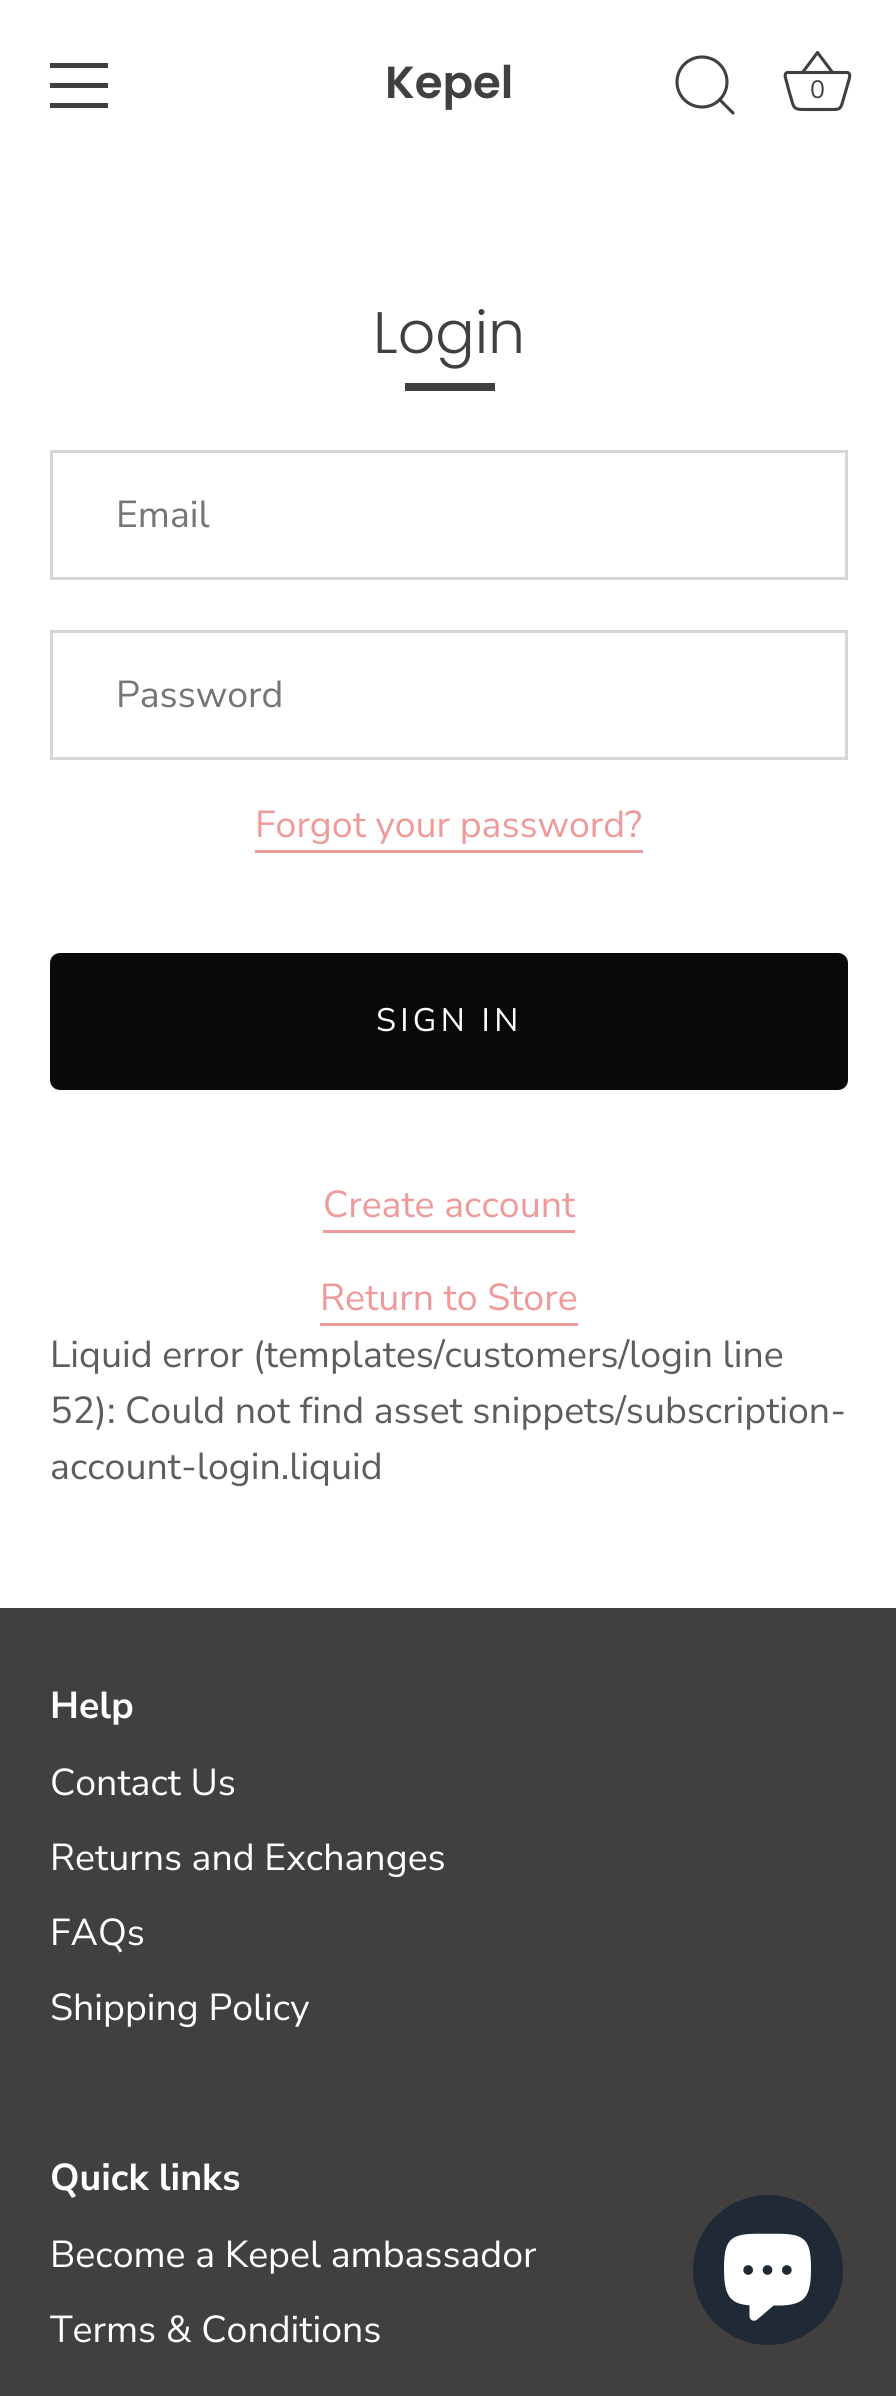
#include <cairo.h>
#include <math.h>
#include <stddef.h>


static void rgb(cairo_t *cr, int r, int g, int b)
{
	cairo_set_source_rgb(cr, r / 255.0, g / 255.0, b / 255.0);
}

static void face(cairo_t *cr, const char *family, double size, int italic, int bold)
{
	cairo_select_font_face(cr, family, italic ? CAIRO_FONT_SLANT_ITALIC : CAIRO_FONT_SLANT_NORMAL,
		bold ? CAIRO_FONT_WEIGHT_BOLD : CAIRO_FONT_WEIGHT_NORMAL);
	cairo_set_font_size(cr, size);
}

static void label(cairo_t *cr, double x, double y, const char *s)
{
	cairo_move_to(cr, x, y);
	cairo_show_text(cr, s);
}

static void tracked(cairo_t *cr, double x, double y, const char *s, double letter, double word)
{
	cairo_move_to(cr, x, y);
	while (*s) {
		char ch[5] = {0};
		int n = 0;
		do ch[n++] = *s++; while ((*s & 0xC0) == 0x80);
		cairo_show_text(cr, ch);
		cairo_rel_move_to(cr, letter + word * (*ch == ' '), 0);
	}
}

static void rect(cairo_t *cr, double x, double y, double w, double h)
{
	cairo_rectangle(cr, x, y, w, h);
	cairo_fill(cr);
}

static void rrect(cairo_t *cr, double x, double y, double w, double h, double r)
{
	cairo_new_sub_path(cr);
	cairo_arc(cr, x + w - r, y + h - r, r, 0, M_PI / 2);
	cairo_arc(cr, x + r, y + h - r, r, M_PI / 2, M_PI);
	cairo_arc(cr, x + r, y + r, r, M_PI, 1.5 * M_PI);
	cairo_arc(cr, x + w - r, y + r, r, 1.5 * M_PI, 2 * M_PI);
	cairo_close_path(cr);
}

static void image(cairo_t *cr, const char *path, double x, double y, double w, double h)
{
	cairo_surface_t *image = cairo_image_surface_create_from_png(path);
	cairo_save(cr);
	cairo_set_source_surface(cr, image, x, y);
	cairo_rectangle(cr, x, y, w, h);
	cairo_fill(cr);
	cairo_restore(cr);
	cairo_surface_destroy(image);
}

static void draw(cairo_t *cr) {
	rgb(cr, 255, 255, 255);
	cairo_paint(cr);
	rgb(cr, 66, 63, 63);
	rect(cr, 50, 63, 58, 5);
	rect(cr, 50, 83, 58, 5);
	rect(cr, 50, 103, 58, 5);
	face(cr, "Poppins SemiBold", 45, 0, 0);
	label(cr, 385, 98, "Kepel");
	cairo_new_path(cr);
	cairo_arc(cr, 702, 82, 25, 0, 2 * M_PI);
	cairo_set_line_width(cr, 3.1);
	cairo_stroke(cr);
	cairo_new_path(cr);
	cairo_move_to(cr, 733, 113);
	cairo_line_to(cr, 719.5, 99.5);
	cairo_set_line_cap(cr, CAIRO_LINE_CAP_ROUND);
	cairo_set_line_join(cr, CAIRO_LINE_JOIN_ROUND);
	cairo_stroke(cr);
	cairo_new_path(cr);
	cairo_move_to(cr, 788, 72.5);
	cairo_curve_to(cr, 783, 72.5, 786, 79, 786.5, 81.5);
	cairo_line_to(cr, 789, 91);
	cairo_curve_to(cr, 795, 110.5, 791, 109.5, 811.5, 109.5);
	cairo_line_to(cr, 829.5, 109.5);
	cairo_curve_to(cr, 839.5, 109.5, 840.5, 110, 843, 100.5);
	cairo_line_to(cr, 848.5, 81.5);
	cairo_curve_to(cr, 849, 79, 851.5, 73.5, 847.5, 72.5);
	cairo_line_to(cr, 788, 72.5);
	cairo_set_line_cap(cr, CAIRO_LINE_CAP_BUTT);
	cairo_stroke(cr);
	cairo_new_path(cr);
	cairo_move_to(cr, 802.5, 72.5);
	cairo_line_to(cr, 817.5, 52.5);
	cairo_line_to(cr, 832.5, 72.5);
	cairo_stroke(cr);
	face(cr, "Nunito Sans", 25, 0, 0);
	label(cr, 810, 98, "0");
	face(cr, "Poppins Light", 58.5, 0, 0);
	label(cr, 373, 353, "Login");
	rect(cr, 405, 383, 90, 8);
	cairo_rectangle(cr, 51.5, 451.5, 795, 127);
	rgb(cr, 215, 214, 214);
	cairo_set_line_width(cr, 3);
	cairo_set_line_join(cr, CAIRO_LINE_JOIN_MITER);
	cairo_stroke(cr);
	face(cr, "Nunito Sans", 37.5, 0, 0);
	rgb(cr, 117, 117, 117);
	label(cr, 116, 527, "Email");
	cairo_rectangle(cr, 51.5, 631.5, 795, 127);
	rgb(cr, 215, 214, 214);
	cairo_stroke(cr);
	rgb(cr, 117, 117, 117);
	label(cr, 116, 707, "Password");
	rgb(cr, 239, 154, 154);
	label(cr, 255, 837, "Forgot your password?");
	rect(cr, 255, 850, 388, 3);
	rgb(cr, 9, 9, 10);
	rrect(cr, 51.5, 954.5, 795, 134, 8.5);
	cairo_fill_preserve(cr);
	cairo_stroke(cr);
	face(cr, "Nunito Sans", 32.5, 0, 0);
	rgb(cr, 255, 255, 255);
	tracked(cr, 376, 1031, "SIGN IN", 4.25, 0);
	face(cr, "Nunito Sans", 37.5, 0, 0);
	rgb(cr, 239, 154, 154);
	label(cr, 323, 1217, "Create account");
	rect(cr, 323, 1230, 252, 3);
	label(cr, 320, 1310, "Return to Store");
	rect(cr, 320, 1323, 258, 3);
	rgb(cr, 94, 92, 92);
	label(cr, 50, 1367, "Liquid error (templates/customers/login line");
	label(cr, 50, 1423, "52): Could not find asset snippets/subscription-");
	label(cr, 50, 1479, "account-login.liquid");
	rgb(cr, 66, 63, 63);
	rect(cr, 0, 1608, 896, 788);
	face(cr, "Nunito Sans", 37.5, 0, 1);
	rgb(cr, 255, 255, 255);
	label(cr, 50, 1718, "Help");
	face(cr, "Nunito Sans", 37.5, 0, 0);
	label(cr, 50, 1795, "Contact Us");
	label(cr, 50, 1870, "Returns and Exchanges");
	label(cr, 50, 1945, "FAQs");
	label(cr, 50, 2020, "Shipping Policy");
	face(cr, "Nunito Sans", 37.5, 0, 1);
	label(cr, 50, 2190, "Quick links");
	face(cr, "Nunito Sans", 37.5, 0, 0);
	label(cr, 50, 2267, "Become a Kepel ambassador");
	label(cr, 50, 2342, "Terms & Conditions");
	rgb(cr, 32, 42, 54);
	cairo_new_path(cr);
	cairo_arc(cr, 768, 2270, 75, 0, 2 * M_PI);
	cairo_fill(cr);
	image(cr, "image0.png", 724, 2233, 87, 88);
}

int main(void) {
	cairo_surface_t *surface = cairo_image_surface_create(CAIRO_FORMAT_RGB24, 896, 2396);
	cairo_t *cr = cairo_create(surface);
	cairo_font_options_t *options = cairo_font_options_create();
	cairo_font_options_set_hint_metrics(options, CAIRO_HINT_METRICS_OFF);
	cairo_font_options_set_hint_style(options, CAIRO_HINT_STYLE_NONE);
	cairo_set_font_options(cr, options);
	cairo_set_miter_limit(cr, 4);
	draw(cr);
	cairo_surface_write_to_png(surface, "render.png");
	cairo_font_options_destroy(options);
	cairo_destroy(cr);
	cairo_surface_destroy(surface);
	return 0;
}
